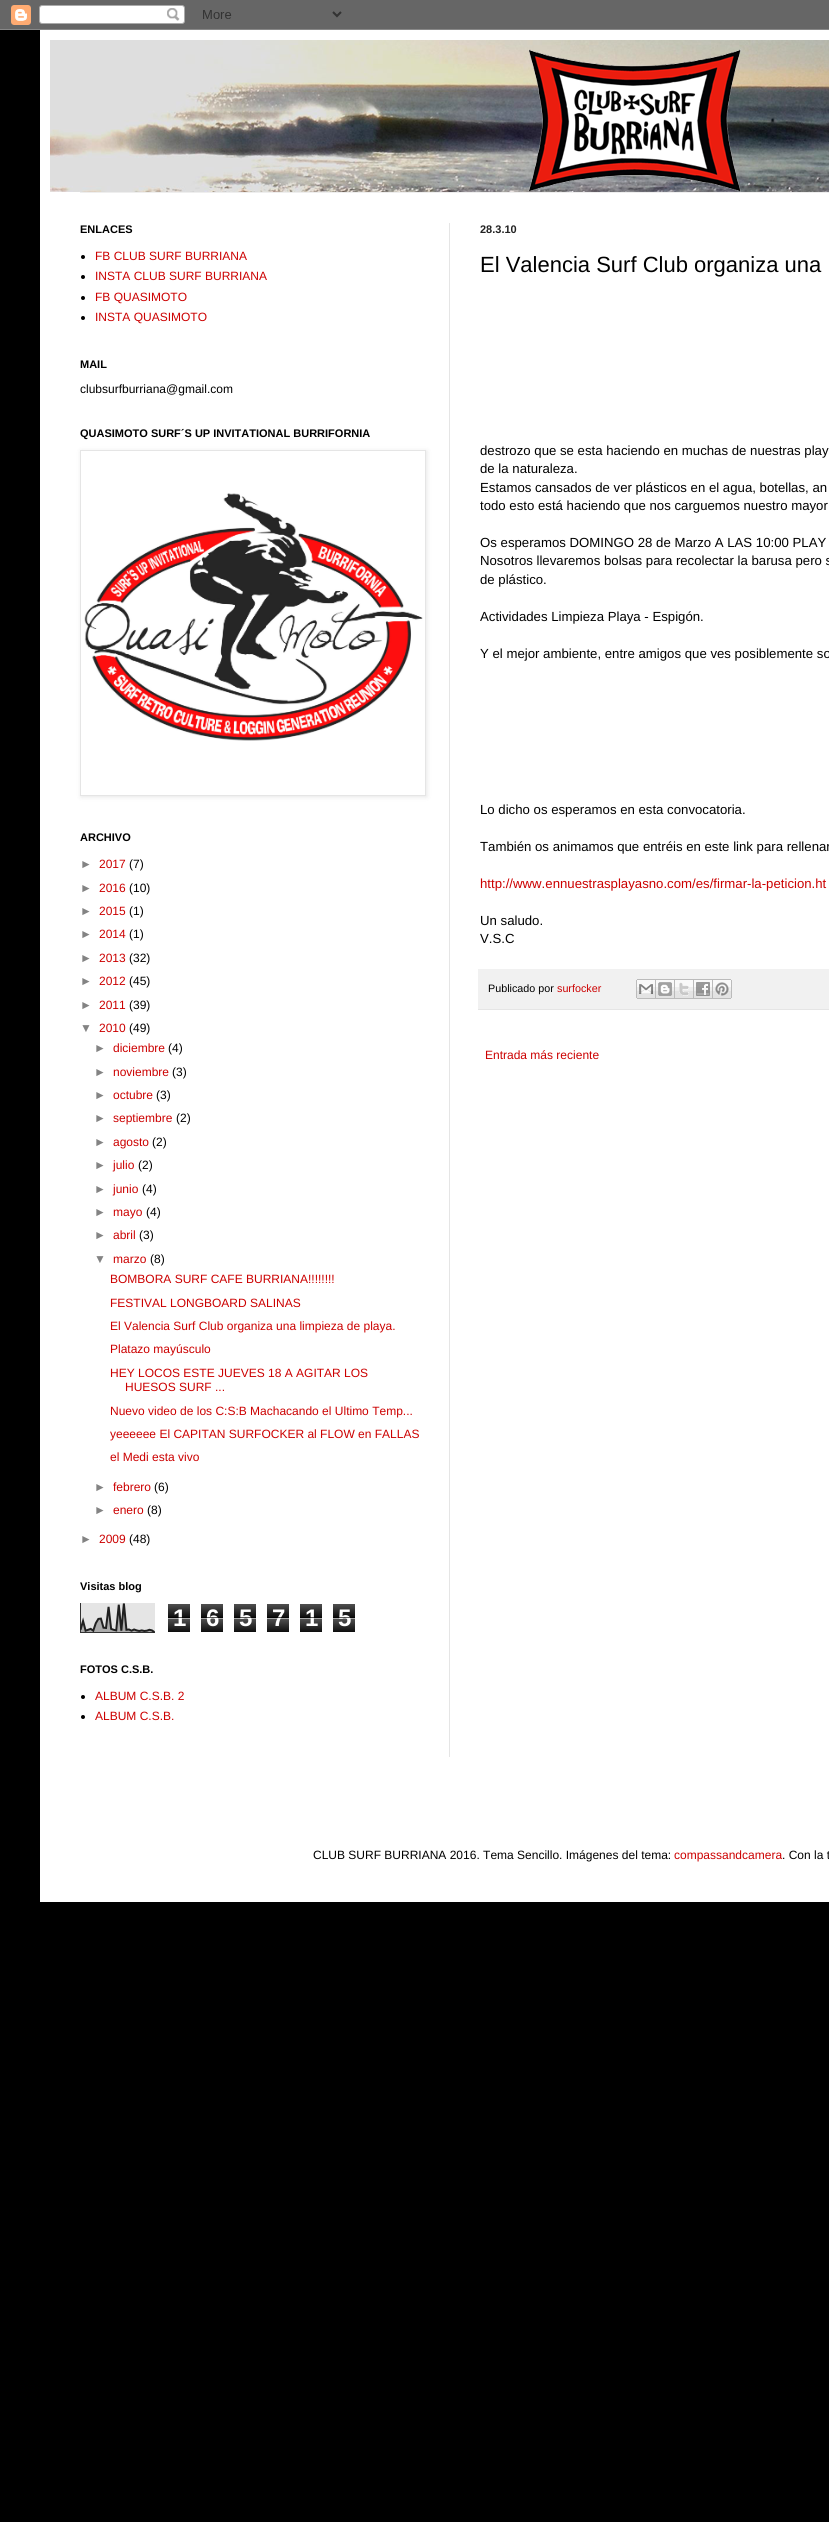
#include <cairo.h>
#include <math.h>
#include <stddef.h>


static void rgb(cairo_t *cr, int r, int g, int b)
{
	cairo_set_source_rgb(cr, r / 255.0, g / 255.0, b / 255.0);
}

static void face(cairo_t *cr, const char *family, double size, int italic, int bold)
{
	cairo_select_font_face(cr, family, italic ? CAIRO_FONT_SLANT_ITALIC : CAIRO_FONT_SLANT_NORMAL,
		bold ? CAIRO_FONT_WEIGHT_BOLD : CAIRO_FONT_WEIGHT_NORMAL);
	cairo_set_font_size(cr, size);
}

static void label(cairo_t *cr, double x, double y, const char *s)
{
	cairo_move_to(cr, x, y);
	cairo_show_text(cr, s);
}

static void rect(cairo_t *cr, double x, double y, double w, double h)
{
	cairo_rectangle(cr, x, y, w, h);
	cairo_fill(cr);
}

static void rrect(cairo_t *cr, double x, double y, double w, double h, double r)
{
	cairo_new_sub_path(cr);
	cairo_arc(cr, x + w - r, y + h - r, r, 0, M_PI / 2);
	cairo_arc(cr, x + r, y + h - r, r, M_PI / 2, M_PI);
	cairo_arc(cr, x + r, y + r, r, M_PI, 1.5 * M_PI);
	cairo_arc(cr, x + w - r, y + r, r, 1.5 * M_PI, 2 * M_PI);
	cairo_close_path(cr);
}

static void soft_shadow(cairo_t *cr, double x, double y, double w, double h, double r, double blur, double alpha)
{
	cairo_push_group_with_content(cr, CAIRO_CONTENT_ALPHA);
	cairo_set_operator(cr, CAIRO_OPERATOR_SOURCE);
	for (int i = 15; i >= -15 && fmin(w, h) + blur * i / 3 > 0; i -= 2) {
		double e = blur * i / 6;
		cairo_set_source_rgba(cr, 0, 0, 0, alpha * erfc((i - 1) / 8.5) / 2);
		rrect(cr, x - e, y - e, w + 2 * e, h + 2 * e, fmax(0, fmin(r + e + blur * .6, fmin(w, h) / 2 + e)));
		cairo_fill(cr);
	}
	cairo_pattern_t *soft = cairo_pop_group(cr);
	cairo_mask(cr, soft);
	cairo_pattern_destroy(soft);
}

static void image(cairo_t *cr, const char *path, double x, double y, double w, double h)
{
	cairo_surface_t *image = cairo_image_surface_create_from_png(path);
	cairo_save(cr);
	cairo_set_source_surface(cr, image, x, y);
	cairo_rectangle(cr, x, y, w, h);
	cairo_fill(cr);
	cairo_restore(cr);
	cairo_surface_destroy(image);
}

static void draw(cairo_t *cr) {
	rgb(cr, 0, 0, 0);
	cairo_paint(cr);
	image(cr, "image0.png", 0, 0, 829, 30);
	rgb(cr, 255, 255, 255);
	rect(cr, 40, 30, 789, 1872);
	image(cr, "image1.png", 50, 40, 779, 152);
	rgb(cr, 238, 238, 238);
	rect(cr, 80, 192, 749, 1);
	rgb(cr, 229, 229, 229);
	rect(cr, 449, 223, 1, 1534);
	face(cr, "Liberation Sans", 11, 0, 1);
	rgb(cr, 0, 0, 0);
	label(cr, 80, 233, "ENLACES");
	cairo_new_path(cr);
	cairo_arc(cr, 83, 257, 2, 0, 2 * M_PI);
	cairo_fill(cr);
	face(cr, "Liberation Sans", 12, 0, 0);
	rgb(cr, 204, 0, 0);
	label(cr, 95, 260, "FB CLUB SURF BURRIANA");
	rgb(cr, 0, 0, 0);
	cairo_new_path(cr);
	cairo_arc(cr, 83, 277, 2, 0, 2 * M_PI);
	cairo_fill(cr);
	rgb(cr, 204, 0, 0);
	label(cr, 95, 280, "INSTA CLUB SURF BURRIANA");
	rgb(cr, 0, 0, 0);
	cairo_new_path(cr);
	cairo_arc(cr, 83, 298, 2, 0, 2 * M_PI);
	cairo_fill(cr);
	rgb(cr, 204, 0, 0);
	label(cr, 95, 301, "FB QUASIMOTO");
	rgb(cr, 0, 0, 0);
	cairo_new_path(cr);
	cairo_arc(cr, 83, 318, 2, 0, 2 * M_PI);
	cairo_fill(cr);
	rgb(cr, 204, 0, 0);
	label(cr, 95, 321, "INSTA QUASIMOTO");
	face(cr, "Liberation Sans", 11, 0, 1);
	rgb(cr, 0, 0, 0);
	label(cr, 80, 368, "MAIL");
	face(cr, "Liberation Sans", 12, 0, 0);
	label(cr, 80, 393, "clubsurfburriana@gmail.com");
	face(cr, "Liberation Sans", 11, 0, 1);
	label(cr, 80, 437, "QUASIMOTO SURF´S UP INVITATIONAL BURRIFORNIA");
	cairo_save(cr);
	cairo_set_fill_rule(cr, CAIRO_FILL_RULE_EVEN_ODD);
	cairo_new_path(cr);
	cairo_move_to(cr, 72, 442);
	cairo_line_to(cr, 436, 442);
	cairo_line_to(cr, 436, 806);
	cairo_line_to(cr, 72, 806);
	cairo_close_path(cr);
	cairo_move_to(cr, 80, 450);
	cairo_line_to(cr, 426, 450);
	cairo_line_to(cr, 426, 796);
	cairo_line_to(cr, 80, 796);
	cairo_close_path(cr);
	cairo_clip(cr);
	rgb(cr, 0, 0, 0);
	soft_shadow(cr, 81, 451, 346, 346, 0, 2.5, 0.1);
	cairo_restore(cr);
	cairo_rectangle(cr, 80.5, 450.5, 345, 345);
	rgb(cr, 229, 229, 229);
	cairo_set_line_width(cr, 1);
	cairo_stroke(cr);
	image(cr, "image2.png", 84, 493, 339, 248);
	rgb(cr, 0, 0, 0);
	label(cr, 80, 841, "ARCHIVO");
	face(cr, "Liberation Sans", 12, 0, 0);
	rgb(cr, 131, 131, 131);
	label(cr, 80, 868, "►");
	rgb(cr, 204, 0, 0);
	label(cr, 99, 868, "2017");
	rgb(cr, 0, 0, 0);
	label(cr, 129, 868, "(7)");
	rgb(cr, 131, 131, 131);
	label(cr, 80, 892, "►");
	rgb(cr, 204, 0, 0);
	label(cr, 99, 892, "2016");
	rgb(cr, 0, 0, 0);
	label(cr, 129, 892, "(10)");
	rgb(cr, 131, 131, 131);
	label(cr, 80, 915, "►");
	rgb(cr, 204, 0, 0);
	label(cr, 99, 915, "2015");
	rgb(cr, 0, 0, 0);
	label(cr, 129, 915, "(1)");
	rgb(cr, 131, 131, 131);
	label(cr, 80, 938, "►");
	rgb(cr, 204, 0, 0);
	label(cr, 99, 938, "2014");
	rgb(cr, 0, 0, 0);
	label(cr, 129, 938, "(1)");
	rgb(cr, 131, 131, 131);
	label(cr, 80, 962, "►");
	rgb(cr, 204, 0, 0);
	label(cr, 99, 962, "2013");
	rgb(cr, 0, 0, 0);
	label(cr, 129, 962, "(32)");
	rgb(cr, 131, 131, 131);
	label(cr, 80, 985, "►");
	rgb(cr, 204, 0, 0);
	label(cr, 99, 985, "2012");
	rgb(cr, 0, 0, 0);
	label(cr, 129, 985, "(45)");
	rgb(cr, 131, 131, 131);
	label(cr, 80, 1009, "►");
	rgb(cr, 204, 0, 0);
	label(cr, 99, 1009, "2011");
	rgb(cr, 0, 0, 0);
	label(cr, 129, 1009, "(39)");
	rgb(cr, 131, 131, 131);
	label(cr, 80, 1032, "▼");
	rgb(cr, 204, 0, 0);
	label(cr, 99, 1032, "2010");
	rgb(cr, 0, 0, 0);
	label(cr, 129, 1032, "(49)");
	rgb(cr, 131, 131, 131);
	label(cr, 94, 1052, "►");
	rgb(cr, 204, 0, 0);
	label(cr, 113, 1052, "diciembre");
	rgb(cr, 0, 0, 0);
	label(cr, 168, 1052, "(4)");
	rgb(cr, 131, 131, 131);
	label(cr, 94, 1076, "►");
	rgb(cr, 204, 0, 0);
	label(cr, 113, 1076, "noviembre");
	rgb(cr, 0, 0, 0);
	label(cr, 172, 1076, "(3)");
	rgb(cr, 131, 131, 131);
	label(cr, 94, 1099, "►");
	rgb(cr, 204, 0, 0);
	label(cr, 113, 1099, "octubre");
	rgb(cr, 0, 0, 0);
	label(cr, 156, 1099, "(3)");
	rgb(cr, 131, 131, 131);
	label(cr, 94, 1122, "►");
	rgb(cr, 204, 0, 0);
	label(cr, 113, 1122, "septiembre");
	rgb(cr, 0, 0, 0);
	label(cr, 176, 1122, "(2)");
	rgb(cr, 131, 131, 131);
	label(cr, 94, 1146, "►");
	rgb(cr, 204, 0, 0);
	label(cr, 113, 1146, "agosto");
	rgb(cr, 0, 0, 0);
	label(cr, 152, 1146, "(2)");
	rgb(cr, 131, 131, 131);
	label(cr, 94, 1169, "►");
	rgb(cr, 204, 0, 0);
	label(cr, 113, 1169, "julio");
	rgb(cr, 0, 0, 0);
	label(cr, 138, 1169, "(2)");
	rgb(cr, 131, 131, 131);
	label(cr, 94, 1193, "►");
	rgb(cr, 204, 0, 0);
	label(cr, 113, 1193, "junio");
	rgb(cr, 0, 0, 0);
	label(cr, 142, 1193, "(4)");
	rgb(cr, 131, 131, 131);
	label(cr, 94, 1216, "►");
	rgb(cr, 204, 0, 0);
	label(cr, 113, 1216, "mayo");
	rgb(cr, 0, 0, 0);
	label(cr, 146, 1216, "(4)");
	rgb(cr, 131, 131, 131);
	label(cr, 94, 1239, "►");
	rgb(cr, 204, 0, 0);
	label(cr, 113, 1239, "abril");
	rgb(cr, 0, 0, 0);
	label(cr, 139, 1239, "(3)");
	rgb(cr, 131, 131, 131);
	label(cr, 94, 1263, "▼");
	rgb(cr, 204, 0, 0);
	label(cr, 113, 1263, "marzo");
	rgb(cr, 0, 0, 0);
	label(cr, 150, 1263, "(8)");
	rgb(cr, 204, 0, 0);
	label(cr, 110, 1283, "BOMBORA SURF CAFE BURRIANA!!!!!!!!");
	label(cr, 110, 1307, "FESTIVAL LONGBOARD SALINAS");
	label(cr, 110, 1330, "El Valencia Surf Club organiza una limpieza de playa.");
	label(cr, 110, 1353, "Platazo mayúsculo");
	label(cr, 110, 1377, "HEY LOCOS ESTE JUEVES 18 A AGITAR LOS");
	label(cr, 125, 1391, "HUESOS SURF ...");
	label(cr, 110, 1415, "Nuevo video de los C:S:B Machacando el Ultimo Temp...");
	label(cr, 110, 1438, "yeeeeee El CAPITAN SURFOCKER al FLOW en FALLAS");
	label(cr, 110, 1461, "el Medi esta vivo");
	rgb(cr, 131, 131, 131);
	label(cr, 94, 1491, "►");
	rgb(cr, 204, 0, 0);
	label(cr, 113, 1491, "febrero");
	rgb(cr, 0, 0, 0);
	label(cr, 154, 1491, "(6)");
	rgb(cr, 131, 131, 131);
	label(cr, 94, 1514, "►");
	rgb(cr, 204, 0, 0);
	label(cr, 113, 1514, "enero");
	rgb(cr, 0, 0, 0);
	label(cr, 147, 1514, "(8)");
	rgb(cr, 131, 131, 131);
	label(cr, 80, 1543, "►");
	rgb(cr, 204, 0, 0);
	label(cr, 99, 1543, "2009");
	rgb(cr, 0, 0, 0);
	label(cr, 129, 1543, "(48)");
	face(cr, "Liberation Sans", 11, 0, 1);
	label(cr, 80, 1590, "Visitas blog");
	image(cr, "image3.png", 80, 1603, 75, 30);
	image(cr, "image4.png", 168, 1604, 22, 28);
	face(cr, "Liberation Sans", 24, 0, 1);
	rgb(cr, 255, 255, 255);
	label(cr, 173, 1626, "1");
	cairo_set_source_rgba(cr, 0, 0, 0, 0.65);
	rect(cr, 168, 1617, 22, 1);
	cairo_set_source_rgba(cr, 1, 1, 1, 0.65);
	rect(cr, 168, 1618, 22, 1);
	image(cr, "image4.png", 201, 1604, 22, 28);
	rgb(cr, 255, 255, 255);
	label(cr, 206, 1626, "6");
	cairo_set_source_rgba(cr, 0, 0, 0, 0.65);
	rect(cr, 201, 1617, 22, 1);
	cairo_set_source_rgba(cr, 1, 1, 1, 0.65);
	rect(cr, 201, 1618, 22, 1);
	image(cr, "image4.png", 234, 1604, 22, 28);
	rgb(cr, 255, 255, 255);
	label(cr, 239, 1626, "5");
	cairo_set_source_rgba(cr, 0, 0, 0, 0.65);
	rect(cr, 234, 1617, 22, 1);
	cairo_set_source_rgba(cr, 1, 1, 1, 0.65);
	rect(cr, 234, 1618, 22, 1);
	image(cr, "image4.png", 267, 1604, 22, 28);
	rgb(cr, 255, 255, 255);
	label(cr, 272, 1626, "7");
	cairo_set_source_rgba(cr, 0, 0, 0, 0.65);
	rect(cr, 267, 1617, 22, 1);
	cairo_set_source_rgba(cr, 1, 1, 1, 0.65);
	rect(cr, 267, 1618, 22, 1);
	image(cr, "image4.png", 300, 1604, 22, 28);
	rgb(cr, 255, 255, 255);
	label(cr, 305, 1626, "1");
	cairo_set_source_rgba(cr, 0, 0, 0, 0.65);
	rect(cr, 300, 1617, 22, 1);
	cairo_set_source_rgba(cr, 1, 1, 1, 0.65);
	rect(cr, 300, 1618, 22, 1);
	image(cr, "image4.png", 333, 1604, 22, 28);
	rgb(cr, 255, 255, 255);
	label(cr, 338, 1626, "5");
	cairo_set_source_rgba(cr, 0, 0, 0, 0.65);
	rect(cr, 333, 1617, 22, 1);
	cairo_set_source_rgba(cr, 1, 1, 1, 0.65);
	rect(cr, 333, 1618, 22, 1);
	face(cr, "Liberation Sans", 11, 0, 1);
	rgb(cr, 0, 0, 0);
	label(cr, 80, 1673, "FOTOS C.S.B.");
	cairo_new_path(cr);
	cairo_arc(cr, 83, 1697, 2, 0, 2 * M_PI);
	cairo_fill(cr);
	face(cr, "Liberation Sans", 12, 0, 0);
	rgb(cr, 204, 0, 0);
	label(cr, 95, 1700, "ALBUM C.S.B. 2");
	rgb(cr, 0, 0, 0);
	cairo_new_path(cr);
	cairo_arc(cr, 83, 1717, 2, 0, 2 * M_PI);
	cairo_fill(cr);
	rgb(cr, 204, 0, 0);
	label(cr, 95, 1720, "ALBUM C.S.B.");
	face(cr, "Liberation Sans", 11, 0, 1);
	rgb(cr, 34, 34, 34);
	label(cr, 480, 233, "28.3.10");
	face(cr, "Liberation Sans", 22, 0, 0);
	rgb(cr, 0, 0, 0);
	label(cr, 480, 272, "El Valencia Surf Club organiza una");
	face(cr, "Liberation Sans", 13.2, 0, 0);
	label(cr, 480, 455, "destrozo que se esta haciendo en muchas de nuestras play");
	label(cr, 480, 473, "de la naturaleza.");
	label(cr, 480, 492, "Estamos cansados de ver plásticos en el agua, botellas, an");
	label(cr, 480, 510, "todo esto está haciendo que nos carguemos nuestro mayor");
	label(cr, 480, 547, "Os esperamos DOMINGO 28 de Marzo A LAS 10:00 PLAY");
	label(cr, 480, 565, "Nosotros llevaremos bolsas para recolectar la barusa pero s");
	label(cr, 480, 584, "de plástico.");
	label(cr, 480, 621, "Actividades Limpieza Playa - Espigón.");
	label(cr, 480, 658, "Y el mejor ambiente, entre amigos que ves posiblemente so");
	label(cr, 480, 814, "Lo dicho os esperamos en esta convocatoria.");
	label(cr, 480, 851, "También os animamos que entréis en este link para rellenar");
	rgb(cr, 204, 0, 0);
	label(cr, 480, 888, "http://www.ennuestrasplayasno.com/es/firmar-la-peticion.ht");
	rgb(cr, 0, 0, 0);
	label(cr, 480, 925, "Un saludo.");
	label(cr, 480, 943, "V.S.C");
	rgb(cr, 241, 241, 241);
	rect(cr, 478, 969, 351, 40);
	rgb(cr, 229, 229, 229);
	rect(cr, 478, 1009, 351, 1);
	face(cr, "Liberation Sans", 10.75, 0, 0);
	rgb(cr, 0, 0, 0);
	label(cr, 488, 992, "Publicado por");
	rgb(cr, 204, 0, 0);
	label(cr, 557, 992, "surfocker");
	image(cr, "image5.png", 636, 979, 20, 20);
	image(cr, "image6.png", 656, 979, 19, 20);
	image(cr, "image7.png", 675, 979, 19, 20);
	image(cr, "image8.png", 694, 979, 19, 20);
	image(cr, "image9.png", 713, 979, 19, 20);
	face(cr, "Liberation Sans", 12, 0, 0);
	label(cr, 485, 1059, "Entrada más reciente");
	rgb(cr, 0, 0, 0);
	label(cr, 313, 1859, "CLUB SURF BURRIANA 2016. Tema Sencillo. Imágenes del tema:");
	rgb(cr, 204, 0, 0);
	label(cr, 674, 1859, "compassandcamera");
	rgb(cr, 0, 0, 0);
	label(cr, 782, 1859, ". Con la t");
}

int main(void) {
	cairo_surface_t *surface = cairo_image_surface_create(CAIRO_FORMAT_RGB24, 829, 2522);
	cairo_t *cr = cairo_create(surface);
	cairo_font_options_t *options = cairo_font_options_create();
	cairo_font_options_set_hint_metrics(options, CAIRO_HINT_METRICS_OFF);
	cairo_font_options_set_hint_style(options, CAIRO_HINT_STYLE_NONE);
	cairo_set_font_options(cr, options);
	cairo_set_miter_limit(cr, 4);
	draw(cr);
	cairo_surface_write_to_png(surface, "render.png");
	cairo_font_options_destroy(options);
	cairo_destroy(cr);
	cairo_surface_destroy(surface);
	return 0;
}
